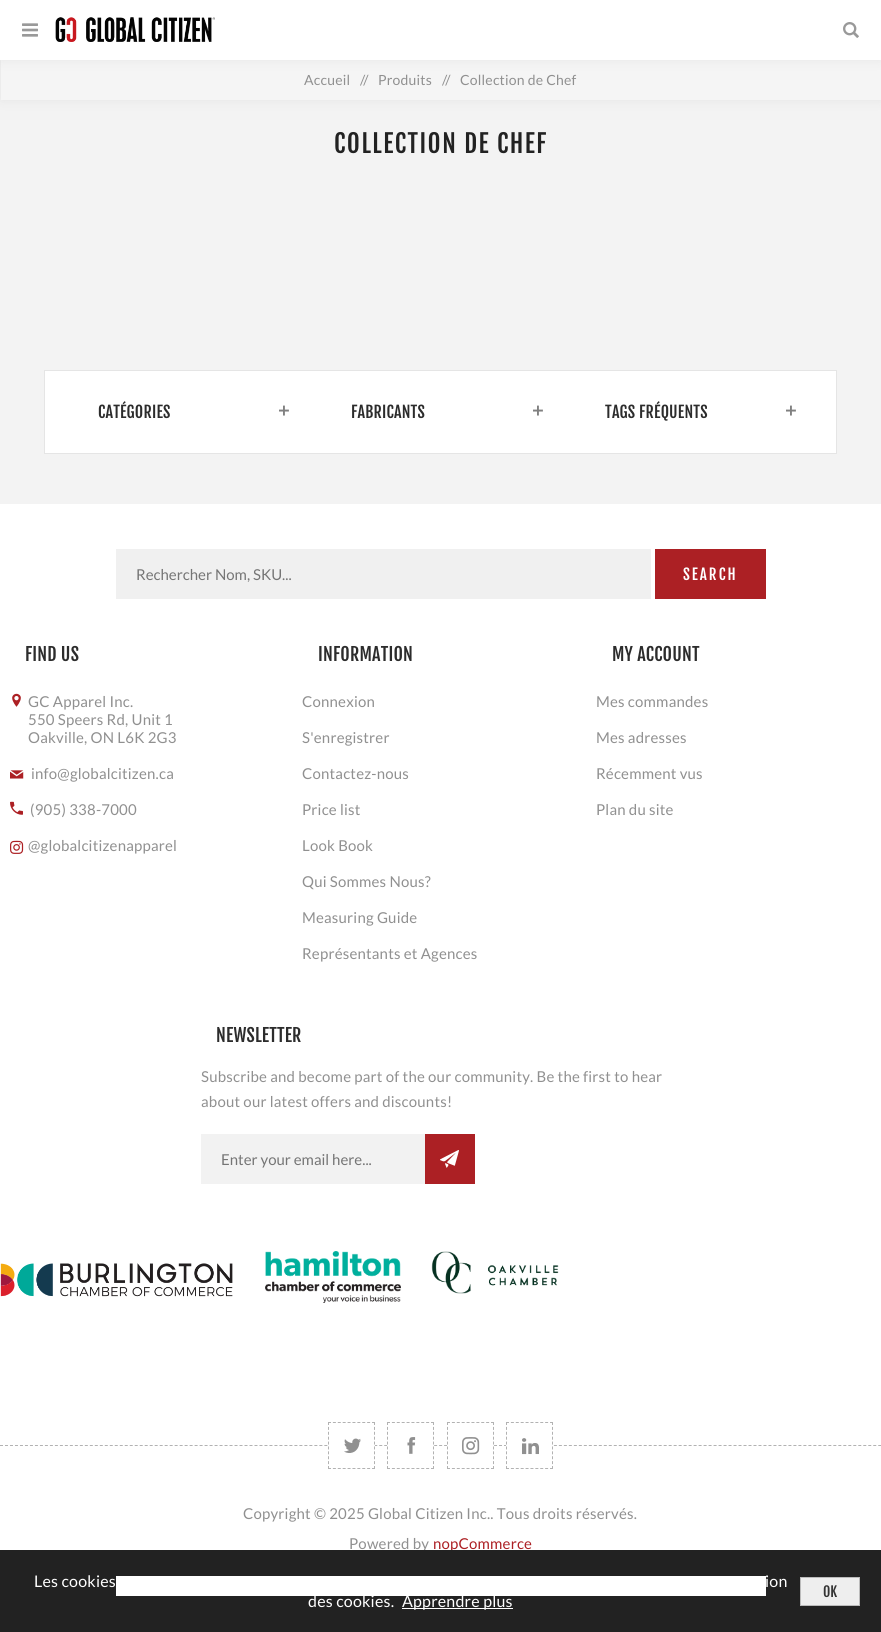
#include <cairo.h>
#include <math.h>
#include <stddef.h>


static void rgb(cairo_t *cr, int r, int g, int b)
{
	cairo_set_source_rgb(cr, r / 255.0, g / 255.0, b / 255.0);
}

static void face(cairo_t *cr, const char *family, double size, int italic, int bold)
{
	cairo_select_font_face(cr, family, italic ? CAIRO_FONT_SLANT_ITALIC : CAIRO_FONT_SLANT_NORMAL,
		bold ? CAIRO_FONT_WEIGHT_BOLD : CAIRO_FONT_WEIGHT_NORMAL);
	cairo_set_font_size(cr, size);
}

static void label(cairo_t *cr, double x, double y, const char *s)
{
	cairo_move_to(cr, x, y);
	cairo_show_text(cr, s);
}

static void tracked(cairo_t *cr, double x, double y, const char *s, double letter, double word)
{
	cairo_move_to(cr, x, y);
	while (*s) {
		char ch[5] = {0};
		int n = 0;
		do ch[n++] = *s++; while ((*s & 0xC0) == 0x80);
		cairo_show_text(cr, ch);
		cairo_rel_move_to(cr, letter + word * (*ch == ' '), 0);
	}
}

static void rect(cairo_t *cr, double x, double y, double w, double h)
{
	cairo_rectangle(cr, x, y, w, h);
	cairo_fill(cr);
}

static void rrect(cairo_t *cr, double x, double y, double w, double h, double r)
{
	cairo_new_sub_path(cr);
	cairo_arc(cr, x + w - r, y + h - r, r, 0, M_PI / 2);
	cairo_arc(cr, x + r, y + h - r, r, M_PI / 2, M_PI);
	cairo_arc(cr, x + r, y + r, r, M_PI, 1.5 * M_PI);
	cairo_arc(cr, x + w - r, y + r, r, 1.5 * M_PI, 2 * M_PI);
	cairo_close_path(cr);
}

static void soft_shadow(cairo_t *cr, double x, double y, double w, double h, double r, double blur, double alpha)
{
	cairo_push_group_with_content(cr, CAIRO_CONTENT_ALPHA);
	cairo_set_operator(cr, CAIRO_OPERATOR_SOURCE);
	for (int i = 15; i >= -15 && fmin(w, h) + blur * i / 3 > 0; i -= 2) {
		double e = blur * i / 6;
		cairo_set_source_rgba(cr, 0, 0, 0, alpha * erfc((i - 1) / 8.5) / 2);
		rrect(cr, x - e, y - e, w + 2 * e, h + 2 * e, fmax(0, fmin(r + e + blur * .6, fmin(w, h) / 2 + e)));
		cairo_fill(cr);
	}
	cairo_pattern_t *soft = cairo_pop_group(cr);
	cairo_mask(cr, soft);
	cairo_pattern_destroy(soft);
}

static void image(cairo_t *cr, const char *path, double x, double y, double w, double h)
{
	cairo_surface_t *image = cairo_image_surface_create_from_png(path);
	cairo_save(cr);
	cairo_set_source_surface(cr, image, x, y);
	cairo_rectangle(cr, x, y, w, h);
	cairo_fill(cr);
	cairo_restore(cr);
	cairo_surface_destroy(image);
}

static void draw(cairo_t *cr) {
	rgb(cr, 255, 255, 255);
	cairo_paint(cr);
	rgb(cr, 243, 243, 243);
	rect(cr, 0, 60, 881, 444);
	rgb(cr, 0, 0, 0);
	soft_shadow(cr, 1, 60, 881, 40, 0, 7, 0.06);
	rgb(cr, 245, 245, 245);
	rect(cr, 1, 60, 880, 40);
	rgb(cr, 0, 0, 0);
	soft_shadow(cr, 0, 0, 881, 60, 0, 7, 0.06);
	rgb(cr, 255, 255, 255);
	rect(cr, 0, 0, 881, 60);
	image(cr, "image0.png", 22, 23, 16, 14);
	image(cr, "image1.png", 55, 17, 160, 25);
	image(cr, "image2.png", 843, 22, 16, 16);
	face(cr, "Lato", 14, 0, 0);
	rgb(cr, 144, 144, 144);
	tracked(cr, 304, 85, "Accueil", 0.2, 0);
	tracked(cr, 360, 85, "//", -2, 0);
	tracked(cr, 378, 85, "Produits", 0.2, 0);
	tracked(cr, 442, 85, "//", -2, 0);
	tracked(cr, 460, 85, "Collection de Chef", 0.2, 0);
	face(cr, "Fjalla One", 25, 0, 0);
	rgb(cr, 34, 34, 34);
	tracked(cr, 334, 153, "COLLECTION DE CHEF", 1.5, 0);
	rgb(cr, 255, 255, 255);
	cairo_rectangle(cr, 44.5, 370.5, 792, 83);
	cairo_fill_preserve(cr);
	rgb(cr, 229, 229, 229);
	cairo_set_line_width(cr, 1);
	cairo_stroke(cr);
	face(cr, "Fjalla One", 16, 0, 0);
	rgb(cr, 44, 44, 44);
	tracked(cr, 98, 418, "CATÉGORIES", 0.2, 0);
	image(cr, "image3.png", 279, 405, 10, 11);
	tracked(cr, 351, 418, "FABRICANTS", 0.2, 0);
	image(cr, "image3.png", 533, 405, 10, 11);
	tracked(cr, 605, 418, "TAGS FRÉQUENTS", 0.2, 0);
	image(cr, "image3.png", 786, 405, 10, 11);
	rgb(cr, 240, 240, 240);
	rect(cr, 116, 549, 535, 50);
	face(cr, "Lato", 15, 0, 0);
	rgb(cr, 117, 117, 117);
	label(cr, 136, 580, "Rechercher Nom, SKU...");
	rgb(cr, 172, 32, 36);
	rect(cr, 655, 549, 111, 50);
	face(cr, "Fjalla One", 15, 0, 0);
	rgb(cr, 255, 255, 255);
	tracked(cr, 683, 580, "SEARCH", 2, 0);
	face(cr, "Fjalla One", 18, 0, 0);
	rgb(cr, 44, 44, 44);
	tracked(cr, 25, 661, "FIND US", 0.2, 0);
	image(cr, "image4.png", 12, 693, 9, 14);
	face(cr, "Lato", 15, 0, 0);
	rgb(cr, 144, 144, 144);
	tracked(cr, 28, 707, "GC Apparel Inc.", 0.2, 0);
	tracked(cr, 28, 725, "550 Speers Rd, Unit 1", 0.2, 0);
	tracked(cr, 28, 743, "Oakville, ON L6K 2G3", 0.2, 0);
	image(cr, "image5.png", 10, 770, 14, 9);
	tracked(cr, 31, 779, "info@globalcitizen.ca", 0.2, 0);
	image(cr, "image6.png", 10, 801, 13, 14);
	tracked(cr, 30, 815, "(905) 338-7000", 0.2, 0);
	image(cr, "image7.png", 10, 840, 14, 14);
	tracked(cr, 28, 851, "@globalcitizenapparel", 0.2, 0);
	face(cr, "Fjalla One", 18, 0, 0);
	rgb(cr, 44, 44, 44);
	tracked(cr, 318, 661, "INFORMATION", 0.2, 0);
	face(cr, "Lato", 15, 0, 0);
	rgb(cr, 144, 144, 144);
	tracked(cr, 302, 707, "Connexion", 0.2, 0);
	tracked(cr, 302, 743, "S'enregistrer", 0.2, 0);
	tracked(cr, 302, 779, "Contactez-nous", 0.2, 0);
	tracked(cr, 302, 815, "Price list", 0.2, 0);
	tracked(cr, 302, 851, "Look Book", 0.2, 0);
	tracked(cr, 302, 887, "Qui Sommes Nous?", 0.2, 0);
	tracked(cr, 302, 923, "Measuring Guide", 0.2, 0);
	tracked(cr, 302, 959, "Représentants et Agences", 0.2, 0);
	face(cr, "Fjalla One", 18, 0, 0);
	rgb(cr, 44, 44, 44);
	tracked(cr, 612, 661, "MY ACCOUNT", 0.2, 0);
	face(cr, "Lato", 15, 0, 0);
	rgb(cr, 144, 144, 144);
	tracked(cr, 596, 707, "Mes commandes", 0.2, 0);
	tracked(cr, 596, 743, "Mes adresses", 0.2, 0);
	tracked(cr, 596, 779, "Récemment vus", 0.2, 0);
	tracked(cr, 596, 815, "Plan du site", 0.2, 0);
	face(cr, "Fjalla One", 18, 0, 0);
	rgb(cr, 44, 44, 44);
	tracked(cr, 216, 1042, "NEWSLETTER", 0.2, 0);
	face(cr, "Lato", 15, 0, 0);
	rgb(cr, 144, 144, 144);
	tracked(cr, 201, 1082, "Subscribe and become part of the our community. Be the first to hear", 0.2, 0);
	tracked(cr, 201, 1107, "about our latest offers and discounts!", 0.2, 0);
	rgb(cr, 242, 242, 242);
	rect(cr, 201, 1134, 224, 50);
	rgb(cr, 117, 117, 117);
	label(cr, 221, 1165, "Enter your email here...");
	rgb(cr, 172, 32, 36);
	rect(cr, 425, 1134, 50, 50);
	image(cr, "image8.png", 440, 1150, 19, 18);
	image(cr, "image9.png", 0, 1263, 233, 34);
	image(cr, "image10.png", 265, 1251, 136, 52);
	image(cr, "image11.png", 431, 1251, 128, 43);
	cairo_new_path(cr);
	cairo_move_to(cr, 0, 1445.5);
	cairo_line_to(cr, 881, 1445.5);
	rgb(cr, 178, 178, 178);
	cairo_set_dash(cr, (double[]){3, 1.99}, 2, 0);
	cairo_stroke(cr);
	rgb(cr, 255, 255, 255);
	rect(cr, 329, 1445, 46, 1);
	cairo_new_path(cr);
	cairo_move_to(cr, 328, 1422.5);
	cairo_line_to(cr, 375, 1422.5);
	cairo_move_to(cr, 374.5, 1422);
	cairo_line_to(cr, 374.5, 1469);
	cairo_move_to(cr, 328, 1468.5);
	cairo_line_to(cr, 375, 1468.5);
	cairo_move_to(cr, 328.5, 1422);
	cairo_line_to(cr, 328.5, 1469);
	rgb(cr, 178, 178, 178);
	cairo_set_dash(cr, (double[]){3, 1.89}, 2, 0);
	cairo_stroke(cr);
	image(cr, "image12.png", 344, 1438, 17, 15);
	rgb(cr, 255, 255, 255);
	rect(cr, 387, 1445, 46, 1);
	cairo_new_path(cr);
	cairo_move_to(cr, 387, 1422.5);
	cairo_line_to(cr, 434, 1422.5);
	cairo_move_to(cr, 433.5, 1422);
	cairo_line_to(cr, 433.5, 1469);
	cairo_move_to(cr, 387, 1468.5);
	cairo_line_to(cr, 434, 1468.5);
	cairo_move_to(cr, 387.5, 1422);
	cairo_line_to(cr, 387.5, 1469);
	rgb(cr, 178, 178, 178);
	cairo_stroke(cr);
	image(cr, "image13.png", 407, 1437, 9, 17);
	rgb(cr, 255, 255, 255);
	rect(cr, 447, 1445, 45, 1);
	cairo_new_path(cr);
	cairo_move_to(cr, 447, 1422.5);
	cairo_line_to(cr, 494, 1422.5);
	cairo_move_to(cr, 493.5, 1422);
	cairo_line_to(cr, 493.5, 1469);
	cairo_move_to(cr, 447, 1468.5);
	cairo_line_to(cr, 494, 1468.5);
	cairo_move_to(cr, 447.5, 1422);
	cairo_line_to(cr, 447.5, 1469);
	rgb(cr, 178, 178, 178);
	cairo_stroke(cr);
	image(cr, "image14.png", 462, 1437, 18, 18);
	rgb(cr, 255, 255, 255);
	rect(cr, 506, 1445, 46, 1);
	cairo_new_path(cr);
	cairo_move_to(cr, 506, 1422.5);
	cairo_line_to(cr, 553, 1422.5);
	cairo_move_to(cr, 552.5, 1422);
	cairo_line_to(cr, 552.5, 1469);
	cairo_move_to(cr, 506, 1468.5);
	cairo_line_to(cr, 553, 1468.5);
	cairo_move_to(cr, 506.5, 1422);
	cairo_line_to(cr, 506.5, 1469);
	rgb(cr, 178, 178, 178);
	cairo_stroke(cr);
	face(cr, "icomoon", 17, 0, 0);
	rgb(cr, 144, 144, 144);
	tracked(cr, 522, 1453, "2", 0.2, 0);
	face(cr, "Lato", 15, 0, 0);
	tracked(cr, 243, 1519, "Copyright © 2025 Global Citizen Inc.. Tous droits réservés.", 0.2, 0);
	tracked(cr, 349, 1549, "Powered by", 0.2, 0);
	rgb(cr, 172, 32, 36);
	tracked(cr, 433, 1549, "nopCommerce", 0.2, 0);
	rgb(cr, 34, 34, 34);
	rect(cr, 0, 1550, 881, 82);
	face(cr, "Lato", 16, 0, 0);
	rgb(cr, 255, 255, 255);
	tracked(cr, 34, 1587, "Les cookies", 0.2, 0);
	tracked(cr, 765, 1587, "ion", 0.2, 0);
	tracked(cr, 308, 1607, "des cookies.", 0.2, 0);
	rect(cr, 402, 1608, 111, 1);
	tracked(cr, 402, 1607, "Apprendre plus", 0.2, 0);
	rgb(cr, 238, 238, 238);
	cairo_rectangle(cr, 800.5, 1577.5, 59, 28);
	cairo_fill_preserve(cr);
	rgb(cr, 187, 187, 187);
	cairo_set_dash(cr, NULL, 0, 0);
	cairo_stroke(cr);
	face(cr, "Fjalla One", 14, 0, 0);
	rgb(cr, 51, 51, 51);
	label(cr, 823, 1597, "OK");
	rgb(cr, 255, 255, 255);
	rect(cr, 116, 1576, 650, 20);
}

int main(void) {
	cairo_surface_t *surface = cairo_image_surface_create(CAIRO_FORMAT_RGB24, 881, 1632);
	cairo_t *cr = cairo_create(surface);
	cairo_font_options_t *options = cairo_font_options_create();
	cairo_font_options_set_hint_metrics(options, CAIRO_HINT_METRICS_OFF);
	cairo_font_options_set_hint_style(options, CAIRO_HINT_STYLE_NONE);
	cairo_set_font_options(cr, options);
	cairo_set_miter_limit(cr, 4);
	draw(cr);
	cairo_surface_write_to_png(surface, "render.png");
	cairo_font_options_destroy(options);
	cairo_destroy(cr);
	cairo_surface_destroy(surface);
	return 0;
}
